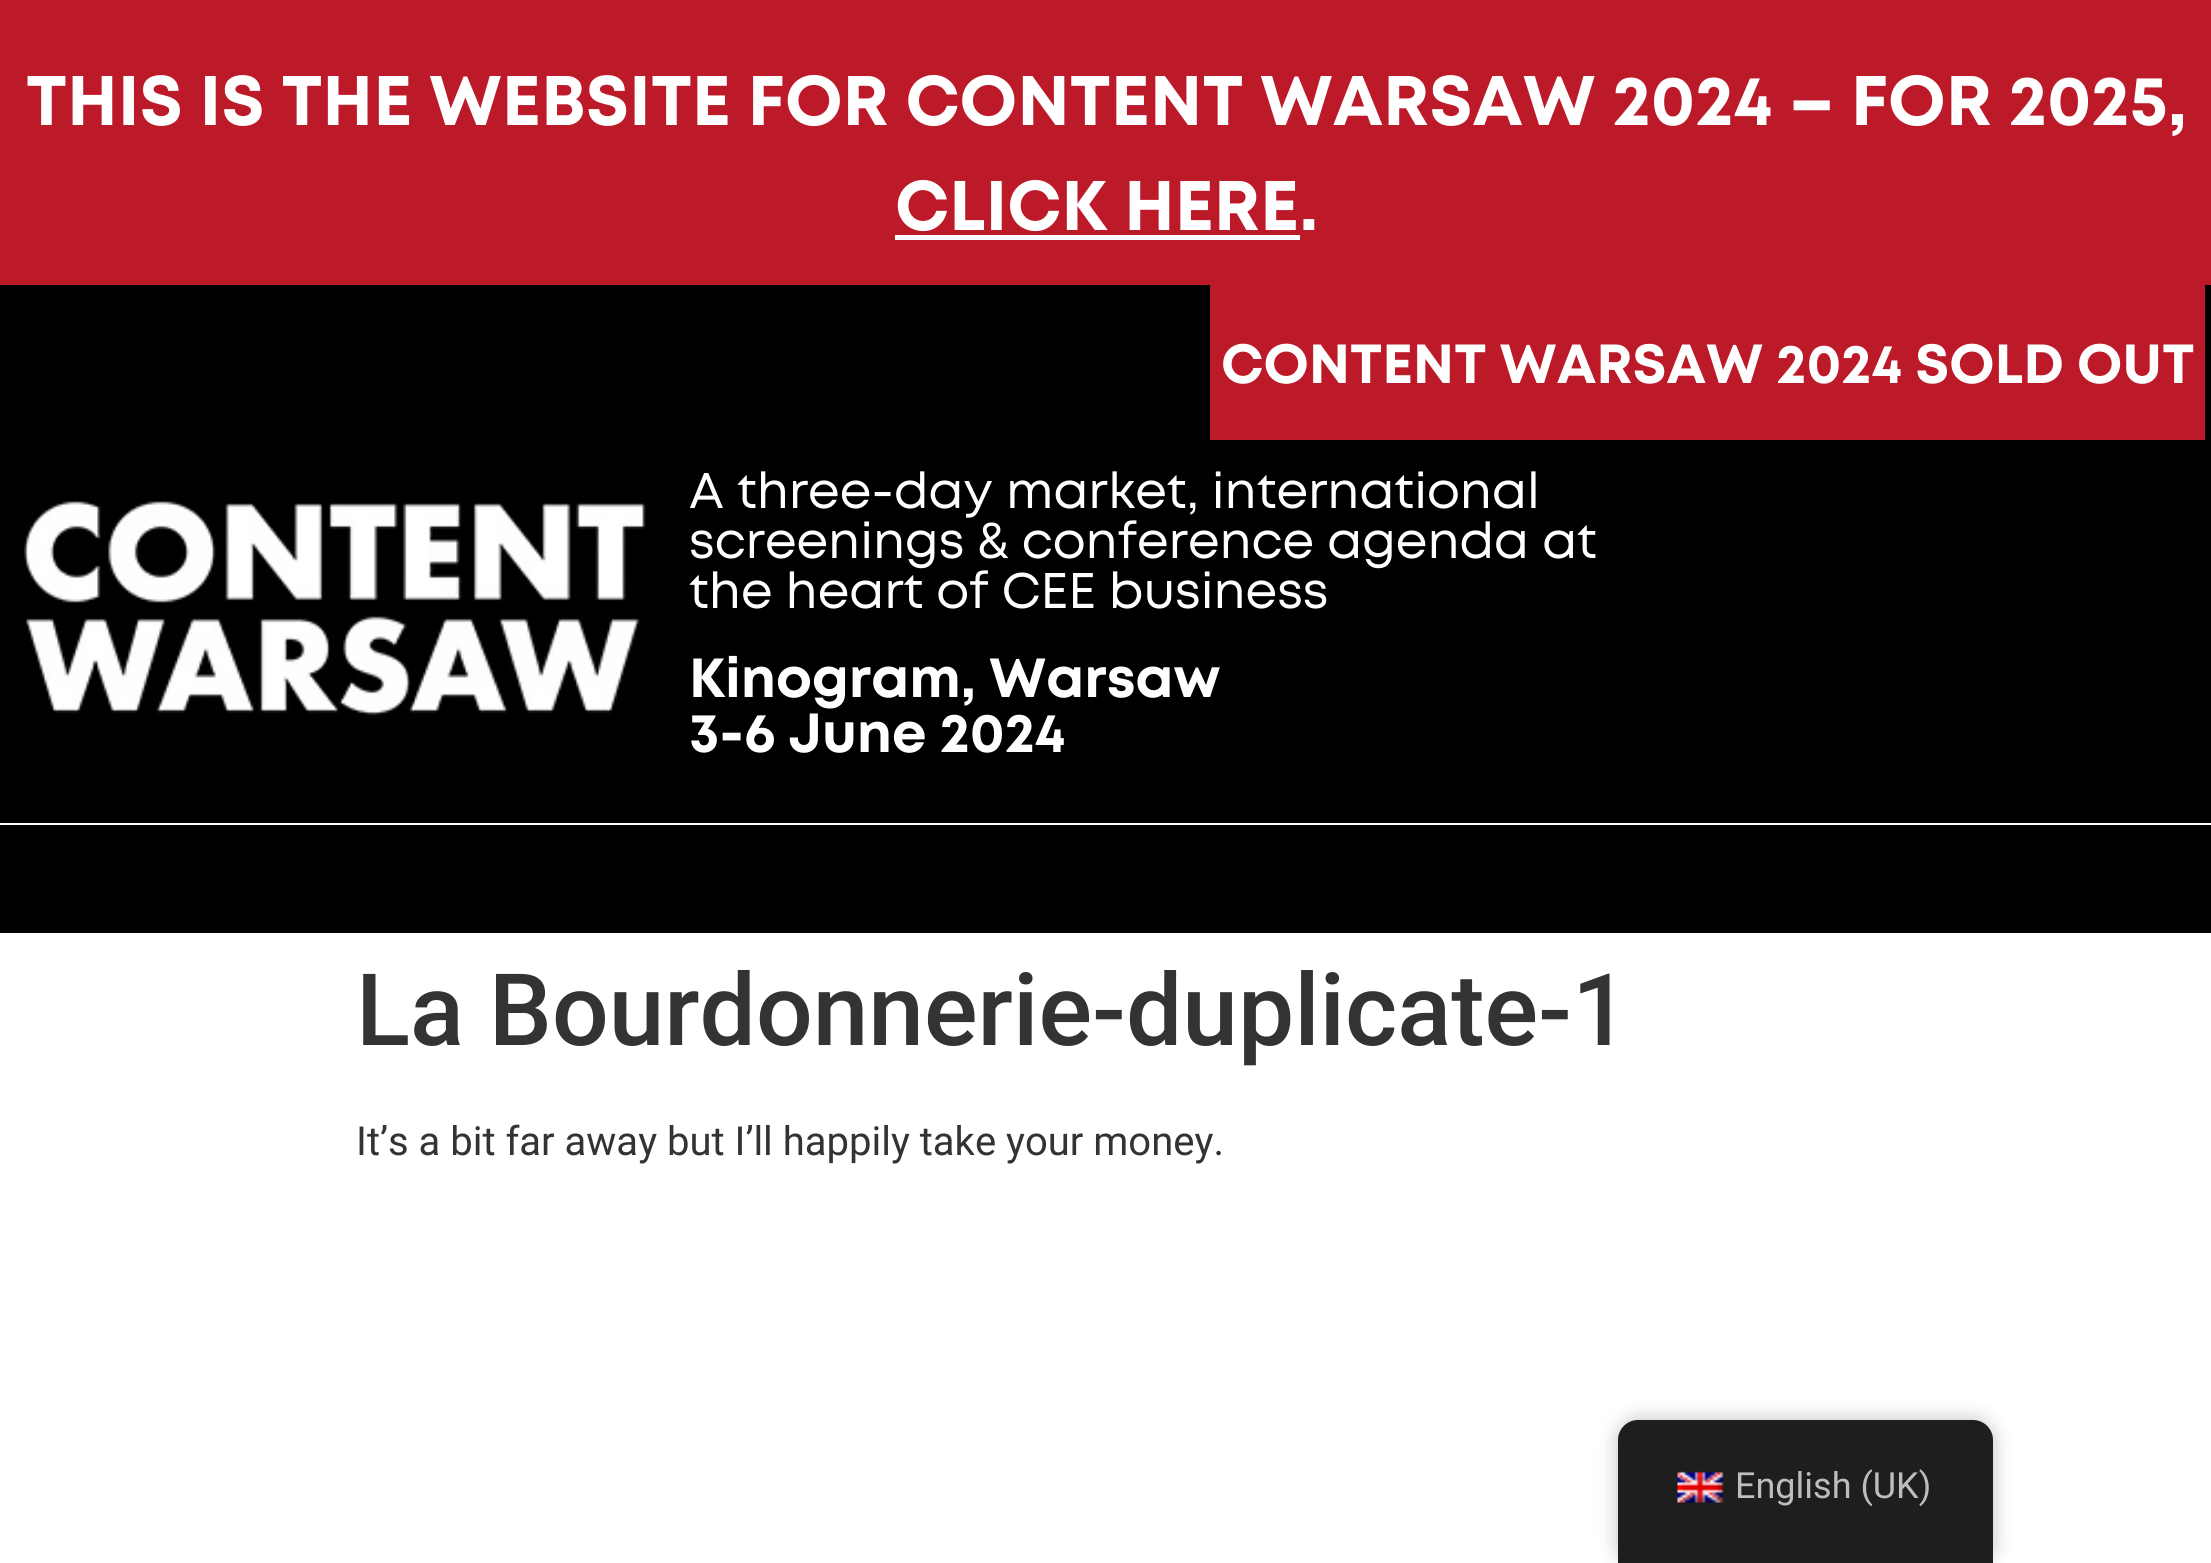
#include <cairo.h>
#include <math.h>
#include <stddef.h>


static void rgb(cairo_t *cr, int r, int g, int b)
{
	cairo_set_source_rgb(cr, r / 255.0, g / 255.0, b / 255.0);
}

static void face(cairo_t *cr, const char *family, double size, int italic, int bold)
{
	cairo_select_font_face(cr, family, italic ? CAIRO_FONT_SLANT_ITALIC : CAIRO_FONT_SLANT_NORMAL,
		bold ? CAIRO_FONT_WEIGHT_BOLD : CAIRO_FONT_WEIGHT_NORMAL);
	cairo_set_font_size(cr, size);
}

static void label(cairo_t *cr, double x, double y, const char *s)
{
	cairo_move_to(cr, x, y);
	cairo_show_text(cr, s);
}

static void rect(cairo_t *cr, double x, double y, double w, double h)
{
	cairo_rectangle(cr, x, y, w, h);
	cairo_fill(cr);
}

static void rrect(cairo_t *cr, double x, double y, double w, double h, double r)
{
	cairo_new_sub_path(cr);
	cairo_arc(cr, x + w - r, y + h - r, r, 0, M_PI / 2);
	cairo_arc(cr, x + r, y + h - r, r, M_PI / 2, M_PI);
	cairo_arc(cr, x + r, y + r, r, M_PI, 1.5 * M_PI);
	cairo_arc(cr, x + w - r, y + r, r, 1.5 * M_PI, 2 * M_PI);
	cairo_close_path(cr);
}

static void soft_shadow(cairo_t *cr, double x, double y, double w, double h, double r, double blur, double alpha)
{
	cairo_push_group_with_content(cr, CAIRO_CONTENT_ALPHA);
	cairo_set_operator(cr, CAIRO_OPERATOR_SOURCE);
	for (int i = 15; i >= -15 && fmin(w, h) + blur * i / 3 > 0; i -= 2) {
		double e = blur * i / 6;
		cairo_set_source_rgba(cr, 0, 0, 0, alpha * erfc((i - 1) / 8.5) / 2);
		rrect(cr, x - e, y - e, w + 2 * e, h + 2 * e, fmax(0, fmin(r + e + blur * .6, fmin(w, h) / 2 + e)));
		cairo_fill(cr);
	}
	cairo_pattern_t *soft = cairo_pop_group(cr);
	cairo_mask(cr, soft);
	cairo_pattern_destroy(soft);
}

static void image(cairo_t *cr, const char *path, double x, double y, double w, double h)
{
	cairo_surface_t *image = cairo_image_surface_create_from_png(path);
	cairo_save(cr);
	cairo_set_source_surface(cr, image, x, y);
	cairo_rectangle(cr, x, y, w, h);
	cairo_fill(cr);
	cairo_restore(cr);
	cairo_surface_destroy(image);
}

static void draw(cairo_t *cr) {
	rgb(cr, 255, 255, 255);
	cairo_paint(cr);
	rgb(cr, 189, 26, 41);
	rect(cr, 0, 0, 2211, 285);
	face(cr, "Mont", 70, 0, 1);
	rgb(cr, 255, 255, 255);
	label(cr, 26, 125, "THIS IS THE WEBSITE FOR CONTENT WARSAW 2024 – FOR 2025,");
	label(cr, 895, 230, "CLICK HERE.");
	rect(cr, 895, 235, 405, 5);
	rgb(cr, 0, 0, 0);
	rect(cr, 0, 285, 2211, 538);
	rgb(cr, 189, 26, 41);
	rect(cr, 1210, 285, 995, 155);
	face(cr, "Mont", 55, 0, 1);
	rgb(cr, 255, 255, 255);
	label(cr, 1221, 383, "CONTENT WARSAW 2024 SOLD OUT");
	image(cr, "image0.png", 24, 496, 622, 220);
	face(cr, "Mont", 50, 0, 0);
	label(cr, 689, 508, "A three-day market, international");
	label(cr, 689, 558, "screenings & conference agenda at");
	label(cr, 689, 608, "the heart of CEE business");
	face(cr, "Mont", 55, 0, 1);
	label(cr, 689, 697, "Kinogram, Warsaw");
	label(cr, 689, 752, "3-6 June 2024");
	rgb(cr, 0, 0, 0);
	rect(cr, 0, 825, 2211, 108);
	face(cr, "Roboto Medium", 100, 0, 0);
	rgb(cr, 51, 51, 51);
	label(cr, 356, 1045, "La Bourdonnerie-duplicate-1");
	face(cr, "Roboto", 40, 0, 0);
	label(cr, 356, 1155, "It’s a bit far away but I’ll happily take your money.");
	rgb(cr, 0, 0, 0);
	soft_shadow(cr, 1618, 1420, 375, 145, 20, 10, 0.25);
	rgb(cr, 30, 30, 30);
	cairo_new_path(cr);
	cairo_move_to(cr, 1638, 1420);
	cairo_line_to(cr, 1973, 1420);
	cairo_curve_to(cr, 1984, 1420, 1993, 1429, 1993, 1440);
	cairo_line_to(cr, 1993, 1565);
	cairo_line_to(cr, 1618, 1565);
	cairo_line_to(cr, 1618, 1440);
	cairo_curve_to(cr, 1618, 1429, 1627, 1420, 1638, 1420);
	cairo_close_path(cr);
	cairo_fill(cr);
	image(cr, "image1.png", 1677, 1471, 47, 32);
	face(cr, "Roboto", 36, 0, 0);
	rgb(cr, 189, 189, 189);
	label(cr, 1735, 1498, "English (UK)");
}

int main(void) {
	cairo_surface_t *surface = cairo_image_surface_create(CAIRO_FORMAT_RGB24, 2211, 1563);
	cairo_t *cr = cairo_create(surface);
	cairo_font_options_t *options = cairo_font_options_create();
	cairo_font_options_set_hint_metrics(options, CAIRO_HINT_METRICS_OFF);
	cairo_font_options_set_hint_style(options, CAIRO_HINT_STYLE_NONE);
	cairo_set_font_options(cr, options);
	cairo_set_miter_limit(cr, 4);
	draw(cr);
	cairo_surface_write_to_png(surface, "render.png");
	cairo_font_options_destroy(options);
	cairo_destroy(cr);
	cairo_surface_destroy(surface);
	return 0;
}
